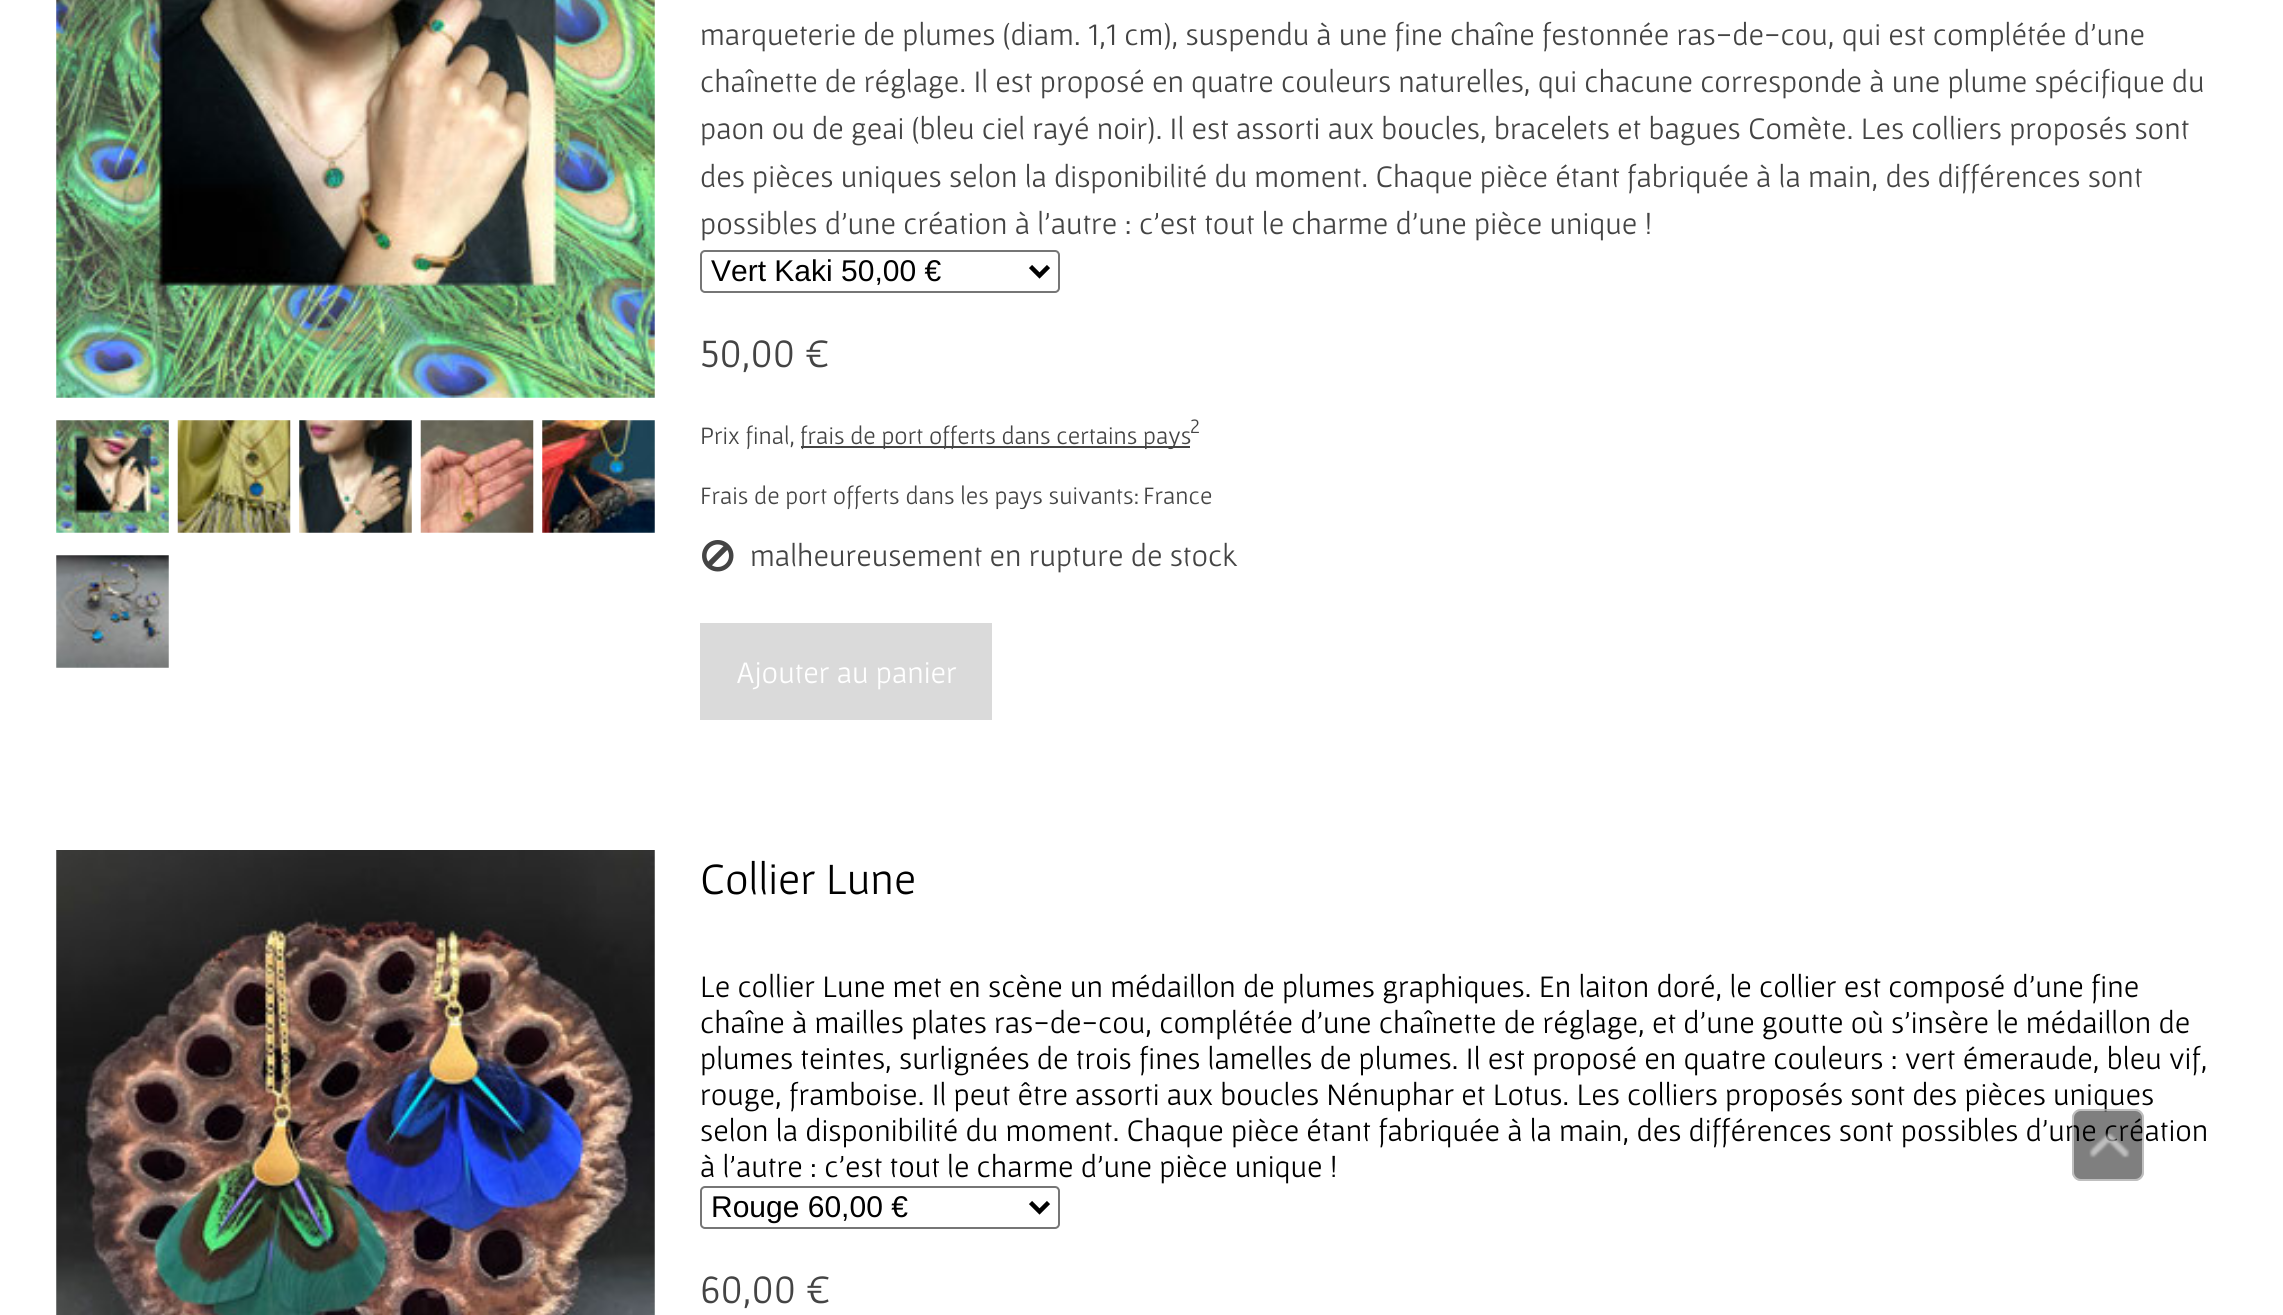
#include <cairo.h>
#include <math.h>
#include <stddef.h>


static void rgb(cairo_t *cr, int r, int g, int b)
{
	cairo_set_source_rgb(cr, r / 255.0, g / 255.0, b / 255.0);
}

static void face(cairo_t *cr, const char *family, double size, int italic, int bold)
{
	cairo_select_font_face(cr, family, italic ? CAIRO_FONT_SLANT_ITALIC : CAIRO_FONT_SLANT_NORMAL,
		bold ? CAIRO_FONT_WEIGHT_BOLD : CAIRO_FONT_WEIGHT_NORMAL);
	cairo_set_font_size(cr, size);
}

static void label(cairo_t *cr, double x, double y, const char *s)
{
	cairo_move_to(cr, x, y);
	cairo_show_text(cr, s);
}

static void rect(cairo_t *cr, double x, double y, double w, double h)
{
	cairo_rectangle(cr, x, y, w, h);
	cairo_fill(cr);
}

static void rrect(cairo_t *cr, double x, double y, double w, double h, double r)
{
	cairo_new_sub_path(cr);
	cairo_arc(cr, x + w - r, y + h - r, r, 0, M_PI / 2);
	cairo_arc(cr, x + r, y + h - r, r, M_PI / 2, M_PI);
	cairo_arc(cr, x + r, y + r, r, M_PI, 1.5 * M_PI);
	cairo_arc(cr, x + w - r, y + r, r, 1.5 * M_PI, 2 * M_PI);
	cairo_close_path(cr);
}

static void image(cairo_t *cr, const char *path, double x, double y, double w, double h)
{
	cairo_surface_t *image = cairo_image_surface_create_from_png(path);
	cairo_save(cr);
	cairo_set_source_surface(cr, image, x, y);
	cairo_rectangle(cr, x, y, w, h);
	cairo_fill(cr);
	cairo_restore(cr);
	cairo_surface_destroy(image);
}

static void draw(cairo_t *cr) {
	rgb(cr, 255, 255, 255);
	cairo_paint(cr);
	image(cr, "image0.png", 56, 0, 599, 398);
	image(cr, "image1.png", 56, 420, 113, 113);
	image(cr, "image2.png", 177, 420, 114, 113);
	image(cr, "image3.png", 299, 420, 113, 113);
	image(cr, "image4.png", 420, 420, 114, 113);
	image(cr, "image5.png", 542, 420, 113, 113);
	image(cr, "image6.png", 56, 555, 113, 113);
	face(cr, "Gafata", 31.5, 0, 0);
	rgb(cr, 68, 68, 68);
	label(cr, 700, 45, "marqueterie de plumes (diam. 1,1 cm), suspendu à une fine chaîne festonnée ras-de-cou, qui est complétée d'une");
	label(cr, 700, 92, "chaînette de réglage. Il est proposé en quatre couleurs naturelles, qui chacune corresponde à une plume spécifique du");
	label(cr, 700, 139, "paon ou de geai (bleu ciel rayé noir). Il est assorti aux boucles, bracelets et bagues Comète. Les colliers proposés sont");
	label(cr, 700, 187, "des pièces uniques selon la disponibilité du moment. Chaque pièce étant fabriquée à la main, des différences sont");
	label(cr, 700, 234, "possibles d'une création à l'autre : c'est tout le charme d'une pièce unique !");
	rrect(cr, 701, 251, 358, 41, 4);
	rgb(cr, 118, 118, 118);
	cairo_stroke(cr);
	cairo_new_path(cr);
	cairo_move_to(cr, 1030.5, 266.5);
	cairo_line_to(cr, 1039.5, 275.5);
	cairo_line_to(cr, 1048.5, 266.5);
	rgb(cr, 0, 0, 0);
	cairo_set_line_width(cr, 4.5);
	cairo_stroke(cr);
	face(cr, "Liberation Sans", 30, 0, 0);
	label(cr, 711, 281, "Vert Kaki 50,00 €");
	face(cr, "Gafata", 40.5, 0, 0);
	rgb(cr, 68, 68, 68);
	label(cr, 700, 367, "50,00 €");
	face(cr, "Gafata", 25.25, 0, 0);
	label(cr, 700, 444, "Prix final,");
	rect(cr, 801, 446, 389, 2);
	label(cr, 800, 444, "frais de port offerts dans certains pays");
	face(cr, "Gafata", 21, 0, 0);
	label(cr, 1190, 433, "2");
	face(cr, "Gafata", 25.25, 0, 0);
	label(cr, 700, 504, "Frais de port offerts dans les pays suivants:");
	label(cr, 1143, 504, "France");
	image(cr, "image7.png", 702, 540, 32, 32);
	face(cr, "Gafata", 31.5, 0, 0);
	label(cr, 750, 566, "malheureusement en rupture de stock");
	rgb(cr, 218, 218, 218);
	rect(cr, 700, 623, 292, 97);
	rgb(cr, 255, 255, 255);
	label(cr, 736, 683, "Ajouter au panier");
	image(cr, "image8.png", 56, 850, 599, 465);
	face(cr, "Gafata", 45, 0, 0);
	rgb(cr, 0, 0, 0);
	label(cr, 700, 894, "Collier Lune");
	face(cr, "Gafata", 31.5, 0, 0);
	label(cr, 700, 997, "Le collier Lune met en scène un médaillon de plumes graphiques. En laiton doré, le collier est composé d'une fine");
	label(cr, 700, 1033, "chaîne à mailles plates ras-de-cou, complétée d'une chaînette de réglage, et d'une goutte où s'insère le médaillon de");
	label(cr, 700, 1069, "plumes teintes, surlignées de trois fines lamelles de plumes. Il est proposé en quatre couleurs : vert émeraude, bleu vif,");
	label(cr, 700, 1105, "rouge, framboise. Il peut être assorti aux boucles Nénuphar et Lotus. Les colliers proposés sont des pièces uniques");
	label(cr, 700, 1141, "selon la disponibilité du moment. Chaque pièce étant fabriquée à la main, des différences sont possibles d'une création");
	label(cr, 700, 1177, "à l'autre : c'est tout le charme d'une pièce unique !");
	rrect(cr, 701, 1187, 358, 41, 4);
	rgb(cr, 118, 118, 118);
	cairo_set_line_width(cr, 2);
	cairo_stroke(cr);
	cairo_new_path(cr);
	cairo_move_to(cr, 1030.5, 1202.5);
	cairo_line_to(cr, 1039.5, 1211.5);
	cairo_line_to(cr, 1048.5, 1202.5);
	rgb(cr, 0, 0, 0);
	cairo_set_line_width(cr, 4.5);
	cairo_stroke(cr);
	face(cr, "Liberation Sans", 30, 0, 0);
	label(cr, 711, 1217, "Rouge 60,00 €");
	face(cr, "Gafata", 40.5, 0, 0);
	rgb(cr, 68, 68, 68);
	label(cr, 700, 1303, "60,00 €");
	cairo_set_source_rgba(cr, 0, 0, 0, 0.5);
	rrect(cr, 2072, 1109, 72, 72, 9);
	cairo_fill(cr);
	rrect(cr, 2073, 1110, 70, 70, 8);
	cairo_set_source_rgba(cr, 1, 1, 1, 0.5);
	cairo_set_line_width(cr, 2);
	cairo_stroke(cr);
	image(cr, "image9.png", 2089, 1133, 41, 25);
}

int main(void) {
	cairo_surface_t *surface = cairo_image_surface_create(CAIRO_FORMAT_RGB24, 2283, 1315);
	cairo_t *cr = cairo_create(surface);
	cairo_font_options_t *options = cairo_font_options_create();
	cairo_font_options_set_hint_metrics(options, CAIRO_HINT_METRICS_OFF);
	cairo_font_options_set_hint_style(options, CAIRO_HINT_STYLE_NONE);
	cairo_set_font_options(cr, options);
	cairo_set_miter_limit(cr, 4);
	draw(cr);
	cairo_surface_write_to_png(surface, "render.png");
	cairo_font_options_destroy(options);
	cairo_destroy(cr);
	cairo_surface_destroy(surface);
	return 0;
}
